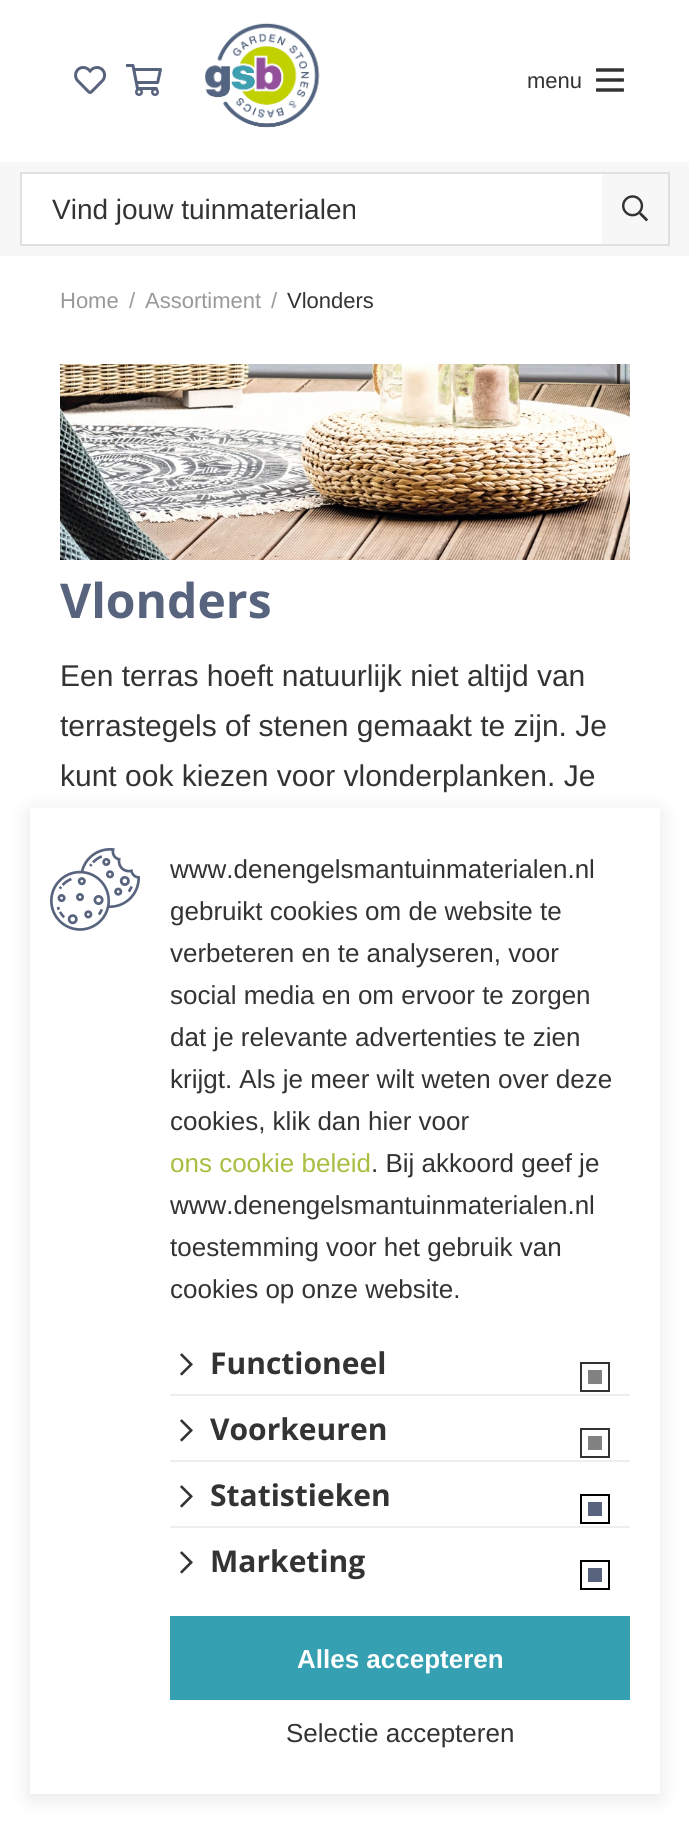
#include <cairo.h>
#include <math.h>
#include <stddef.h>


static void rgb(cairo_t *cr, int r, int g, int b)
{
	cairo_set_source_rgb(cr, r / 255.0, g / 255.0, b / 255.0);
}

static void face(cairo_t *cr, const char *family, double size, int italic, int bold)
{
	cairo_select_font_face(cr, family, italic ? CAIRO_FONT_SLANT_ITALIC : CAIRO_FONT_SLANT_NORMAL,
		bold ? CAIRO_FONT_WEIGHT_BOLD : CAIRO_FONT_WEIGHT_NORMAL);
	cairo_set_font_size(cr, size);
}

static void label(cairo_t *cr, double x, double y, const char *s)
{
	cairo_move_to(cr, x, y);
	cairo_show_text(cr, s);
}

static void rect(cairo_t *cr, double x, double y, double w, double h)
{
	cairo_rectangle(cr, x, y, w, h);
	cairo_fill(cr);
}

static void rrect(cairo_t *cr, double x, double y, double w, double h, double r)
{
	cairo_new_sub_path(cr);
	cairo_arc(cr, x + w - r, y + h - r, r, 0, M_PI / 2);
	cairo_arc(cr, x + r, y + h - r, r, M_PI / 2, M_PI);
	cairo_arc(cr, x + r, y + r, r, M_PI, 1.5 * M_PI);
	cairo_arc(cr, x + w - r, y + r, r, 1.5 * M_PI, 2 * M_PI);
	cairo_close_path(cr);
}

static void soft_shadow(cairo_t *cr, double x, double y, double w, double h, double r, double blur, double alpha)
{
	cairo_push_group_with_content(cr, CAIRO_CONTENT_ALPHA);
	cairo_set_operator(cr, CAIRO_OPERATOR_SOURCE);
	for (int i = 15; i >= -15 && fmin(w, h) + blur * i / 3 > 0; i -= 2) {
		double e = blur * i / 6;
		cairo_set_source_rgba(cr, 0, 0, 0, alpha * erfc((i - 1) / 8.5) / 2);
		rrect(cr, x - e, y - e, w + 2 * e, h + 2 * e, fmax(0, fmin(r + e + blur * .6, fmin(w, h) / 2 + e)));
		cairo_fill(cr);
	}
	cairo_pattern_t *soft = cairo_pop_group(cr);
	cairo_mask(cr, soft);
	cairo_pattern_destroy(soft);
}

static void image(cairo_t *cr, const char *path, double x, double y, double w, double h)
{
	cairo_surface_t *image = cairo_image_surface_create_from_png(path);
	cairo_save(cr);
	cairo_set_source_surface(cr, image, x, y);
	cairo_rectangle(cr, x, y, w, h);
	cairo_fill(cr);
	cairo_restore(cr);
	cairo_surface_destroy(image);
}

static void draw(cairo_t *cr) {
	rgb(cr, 255, 255, 255);
	cairo_paint(cr);
	image(cr, "image0.png", 74, 66, 33, 28);
	image(cr, "image1.png", 126, 64, 36, 32);
	image(cr, "image2.png", 204, 23, 116, 105);
	face(cr, "Liberation Sans", 22, 0, 0);
	rgb(cr, 51, 51, 51);
	label(cr, 527, 88, "menu");
	image(cr, "image3.png", 596, 68, 28, 24);
	rgb(cr, 247, 247, 247);
	rect(cr, 0, 162, 689, 94);
	rgb(cr, 255, 255, 255);
	rect(cr, 22, 174, 580, 70);
	cairo_rectangle(cr, 21, 173, 648, 72);
	rgb(cr, 224, 224, 224);
	cairo_stroke(cr);
	face(cr, "Liberation Sans", 28, 0, 0);
	rgb(cr, 51, 51, 51);
	label(cr, 52, 219, "Vind jouw tuinmaterialen");
	image(cr, "image4.png", 622, 195, 26, 27);
	face(cr, "Liberation Sans", 22, 0, 0);
	rgb(cr, 153, 153, 153);
	label(cr, 60, 308, "Home");
	label(cr, 129, 308, "/");
	label(cr, 145, 308, "Assortiment");
	label(cr, 271, 308, "/");
	rgb(cr, 51, 51, 51);
	label(cr, 287, 308, "Vlonders");
	image(cr, "image5.png", 60, 364, 570, 196);
	face(cr, "Open Sans", 48, 0, 1);
	rgb(cr, 88, 99, 126);
	label(cr, 60, 618, "Vlonders");
	face(cr, "Liberation Sans", 30, 0, 0);
	rgb(cr, 51, 51, 51);
	label(cr, 60, 686, "Een terras hoeft natuurlijk niet altijd van");
	label(cr, 60, 736, "terrastegels of stenen gemaakt te zijn. Je");
	label(cr, 60, 786, "kunt ook kiezen voor vlonderplanken. Je");
	rgb(cr, 0, 0, 0);
	soft_shadow(cr, 30, 812, 630, 986, 0, 10, 0.1);
	rgb(cr, 255, 255, 255);
	rect(cr, 30, 808, 630, 986);
	image(cr, "image6.png", 50, 848, 90, 83);
	face(cr, "Liberation Sans", 26, 0, 0);
	rgb(cr, 51, 51, 51);
	label(cr, 170, 878, "www.denengelsmantuinmaterialen.nl");
	label(cr, 170, 920, "gebruikt cookies om de website te");
	label(cr, 170, 962, "verbeteren en te analyseren, voor");
	label(cr, 170, 1004, "social media en om ervoor te zorgen");
	label(cr, 170, 1046, "dat je relevante advertenties te zien");
	label(cr, 170, 1088, "krijgt. Als je meer wilt weten over deze");
	label(cr, 170, 1130, "cookies, klik dan hier voor");
	rgb(cr, 166, 191, 64);
	label(cr, 170, 1172, "ons cookie beleid");
	rgb(cr, 51, 51, 51);
	label(cr, 371, 1172, ". Bij akkoord geef je");
	label(cr, 170, 1214, "www.denengelsmantuinmaterialen.nl");
	label(cr, 170, 1256, "toestemming voor het gebruik van");
	label(cr, 170, 1298, "cookies op onze website.");
	image(cr, "image7.png", 180, 1353, 13, 23);
	face(cr, "Open Sans", 30, 0, 1);
	label(cr, 210, 1374, "Functioneel");
	cairo_rectangle(cr, 581, 1363, 28, 28);
	cairo_stroke(cr);
	rgb(cr, 130, 130, 130);
	rect(cr, 588, 1370, 14, 14);
	rgb(cr, 238, 238, 238);
	rect(cr, 170, 1394, 460, 2);
	image(cr, "image7.png", 180, 1419, 13, 23);
	rgb(cr, 51, 51, 51);
	label(cr, 210, 1440, "Voorkeuren");
	cairo_rectangle(cr, 581, 1429, 28, 28);
	cairo_stroke(cr);
	rgb(cr, 130, 130, 130);
	rect(cr, 588, 1436, 14, 14);
	rgb(cr, 238, 238, 238);
	rect(cr, 170, 1460, 460, 2);
	image(cr, "image7.png", 180, 1485, 13, 23);
	rgb(cr, 51, 51, 51);
	label(cr, 210, 1506, "Statistieken");
	cairo_rectangle(cr, 581, 1495, 28, 28);
	rgb(cr, 0, 0, 0);
	cairo_stroke(cr);
	rgb(cr, 88, 99, 126);
	rect(cr, 588, 1502, 14, 14);
	rgb(cr, 238, 238, 238);
	rect(cr, 170, 1526, 460, 2);
	image(cr, "image7.png", 180, 1551, 13, 23);
	rgb(cr, 51, 51, 51);
	label(cr, 210, 1572, "Marketing");
	cairo_rectangle(cr, 581, 1561, 28, 28);
	rgb(cr, 0, 0, 0);
	cairo_stroke(cr);
	rgb(cr, 88, 99, 126);
	rect(cr, 588, 1568, 14, 14);
	rgb(cr, 52, 160, 177);
	rect(cr, 170, 1616, 460, 84);
	face(cr, "Liberation Sans", 26, 0, 1);
	rgb(cr, 255, 255, 255);
	label(cr, 297, 1668, "Alles accepteren");
	face(cr, "Liberation Sans", 26, 0, 0);
	rgb(cr, 51, 51, 51);
	label(cr, 286, 1742, "Selectie accepteren");
}

int main(void) {
	cairo_surface_t *surface = cairo_image_surface_create(CAIRO_FORMAT_RGB24, 689, 1823);
	cairo_t *cr = cairo_create(surface);
	cairo_font_options_t *options = cairo_font_options_create();
	cairo_font_options_set_hint_metrics(options, CAIRO_HINT_METRICS_OFF);
	cairo_font_options_set_hint_style(options, CAIRO_HINT_STYLE_NONE);
	cairo_set_font_options(cr, options);
	cairo_set_miter_limit(cr, 4);
	draw(cr);
	cairo_surface_write_to_png(surface, "render.png");
	cairo_font_options_destroy(options);
	cairo_destroy(cr);
	cairo_surface_destroy(surface);
	return 0;
}
